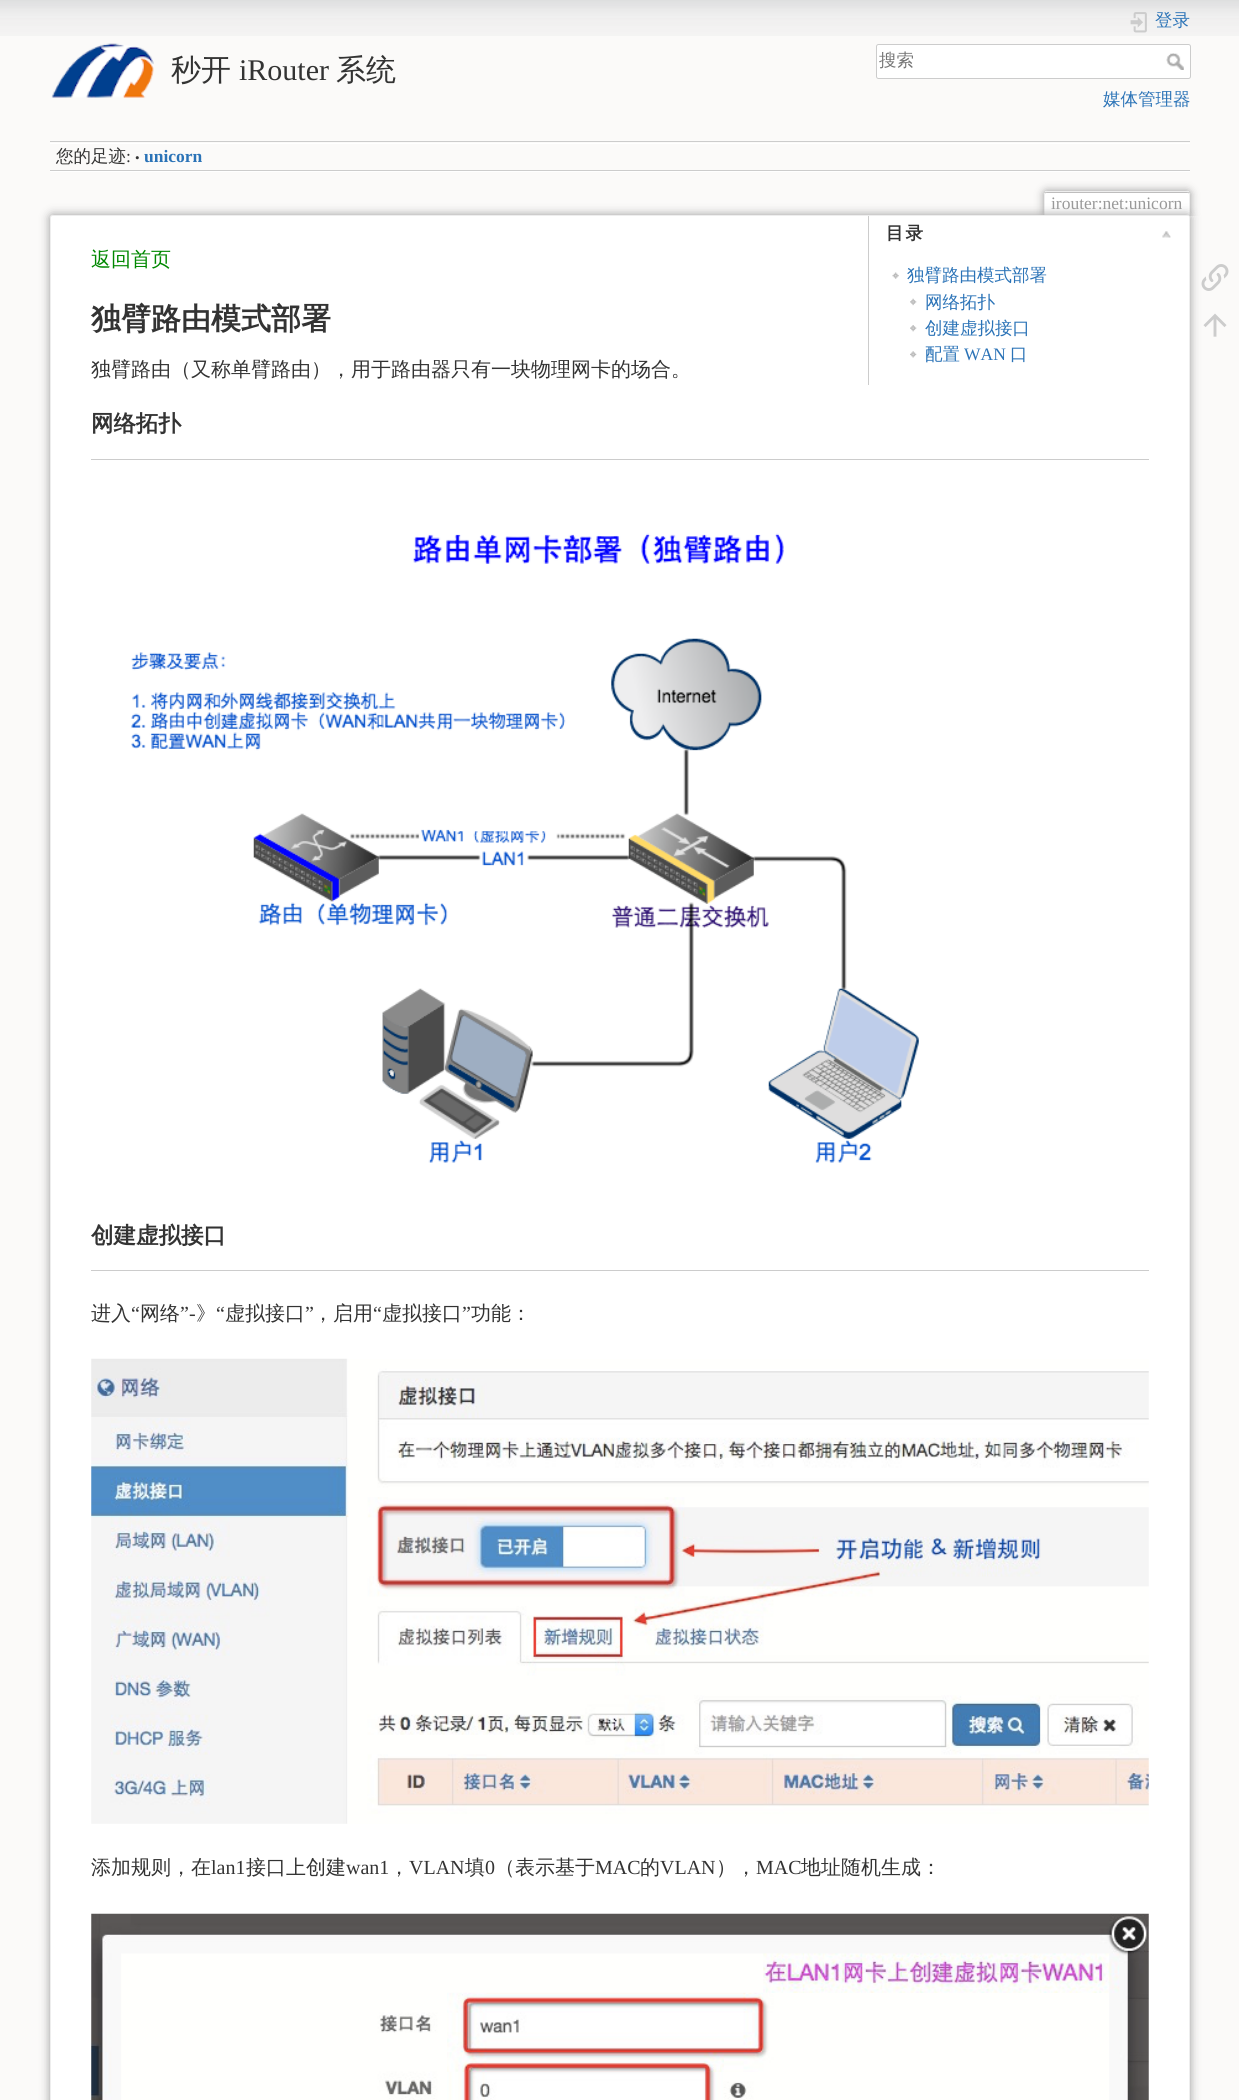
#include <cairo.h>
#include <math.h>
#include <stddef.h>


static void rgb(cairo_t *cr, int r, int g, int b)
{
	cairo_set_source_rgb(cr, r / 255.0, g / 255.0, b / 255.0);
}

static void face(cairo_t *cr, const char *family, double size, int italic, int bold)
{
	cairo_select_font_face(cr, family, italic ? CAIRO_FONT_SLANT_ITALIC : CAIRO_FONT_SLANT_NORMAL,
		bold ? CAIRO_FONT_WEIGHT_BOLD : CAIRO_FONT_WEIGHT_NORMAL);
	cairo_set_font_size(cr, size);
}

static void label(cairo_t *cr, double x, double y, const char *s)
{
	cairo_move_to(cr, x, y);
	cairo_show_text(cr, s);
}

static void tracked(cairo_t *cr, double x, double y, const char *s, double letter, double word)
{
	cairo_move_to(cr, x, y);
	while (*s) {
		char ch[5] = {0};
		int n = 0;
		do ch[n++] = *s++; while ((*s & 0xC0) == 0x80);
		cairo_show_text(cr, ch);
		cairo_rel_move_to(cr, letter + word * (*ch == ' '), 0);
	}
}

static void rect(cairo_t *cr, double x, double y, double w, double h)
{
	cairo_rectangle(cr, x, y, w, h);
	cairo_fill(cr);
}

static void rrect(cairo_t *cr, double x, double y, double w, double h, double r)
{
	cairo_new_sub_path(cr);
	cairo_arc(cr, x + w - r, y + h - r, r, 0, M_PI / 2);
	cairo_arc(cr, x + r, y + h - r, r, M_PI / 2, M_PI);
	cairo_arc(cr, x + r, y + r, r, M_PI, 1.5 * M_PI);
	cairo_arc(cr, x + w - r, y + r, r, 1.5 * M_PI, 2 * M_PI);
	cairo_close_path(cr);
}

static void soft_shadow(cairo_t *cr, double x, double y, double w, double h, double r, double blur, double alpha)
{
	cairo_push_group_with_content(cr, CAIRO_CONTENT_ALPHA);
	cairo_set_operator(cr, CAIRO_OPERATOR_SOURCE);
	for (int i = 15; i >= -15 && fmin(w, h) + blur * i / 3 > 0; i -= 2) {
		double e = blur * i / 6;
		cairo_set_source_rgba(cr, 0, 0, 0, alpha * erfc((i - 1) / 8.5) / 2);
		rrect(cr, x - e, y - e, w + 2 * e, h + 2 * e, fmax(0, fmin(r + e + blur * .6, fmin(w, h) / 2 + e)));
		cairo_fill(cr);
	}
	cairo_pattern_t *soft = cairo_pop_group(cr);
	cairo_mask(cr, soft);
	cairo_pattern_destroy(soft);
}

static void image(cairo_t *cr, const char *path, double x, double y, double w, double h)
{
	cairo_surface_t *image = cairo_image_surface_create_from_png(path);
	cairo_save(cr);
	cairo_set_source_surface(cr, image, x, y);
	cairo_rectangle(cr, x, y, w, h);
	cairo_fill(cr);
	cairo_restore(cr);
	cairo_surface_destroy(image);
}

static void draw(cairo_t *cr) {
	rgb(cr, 251, 250, 249);
	cairo_paint(cr);
	image(cr, "image0.png", 0, 0, 1239, 36);
	image(cr, "image1.png", 51, 43, 103, 56);
	face(cr, "WenQuanYi Zen Hei Medium", 30, 0, 0);
	rgb(cr, 51, 51, 51);
	label(cr, 171, 80, "秒开");
	face(cr, "Liberation Serif", 30, 0, 0);
	label(cr, 239, 80, "iRouter");
	face(cr, "WenQuanYi Zen Hei Medium", 30, 0, 0);
	label(cr, 336, 80, "系统");
	image(cr, "image2.png", 1130, 12, 17, 21);
	face(cr, "WenQuanYi Zen Hei Medium", 17.5, 0, 0);
	rgb(cr, 43, 115, 183);
	label(cr, 1155, 26, "登录");
	rgb(cr, 255, 255, 255);
	rrect(cr, 876.5, 44.5, 314, 34, 2);
	cairo_fill_preserve(cr);
	rgb(cr, 204, 204, 204);
	cairo_set_line_width(cr, 1);
	cairo_stroke(cr);
	rgb(cr, 117, 117, 117);
	label(cr, 879, 66, "搜索");
	image(cr, "image3.png", 1166, 53, 18, 17);
	rgb(cr, 43, 115, 183);
	label(cr, 1103, 105, "媒体管理器");
	rgb(cr, 204, 204, 204);
	rect(cr, 50, 141, 1140, 1);
	rgb(cr, 255, 255, 255);
	rect(cr, 50, 171, 1140, 1);
	rect(cr, 50, 143, 1140, 1);
	rgb(cr, 204, 204, 204);
	rect(cr, 50, 170, 1140, 1);
	rgb(cr, 51, 51, 51);
	label(cr, 56, 162, "您的足迹");
	face(cr, "Liberation Serif", 17.5, 0, 0);
	label(cr, 126, 162, ":");
	face(cr, "Liberation Serif", 13, 0, 0);
	label(cr, 135, 162, "•");
	face(cr, "Liberation Serif", 17.5, 0, 1);
	rgb(cr, 43, 115, 183);
	label(cr, 144, 162, "unicorn");
	cairo_save(cr);
	cairo_rectangle(cr, 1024, 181, 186, 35);
	cairo_clip(cr);
	rgb(cr, 153, 153, 153);
	soft_shadow(cr, 1044, 191, 146, 25, 2.5, 4.5, 1);
	cairo_restore(cr);
	rgb(cr, 255, 255, 255);
	cairo_new_path(cr);
	cairo_move_to(cr, 1046, 193);
	cairo_line_to(cr, 1188, 193);
	cairo_curve_to(cr, 1188.5, 193, 1189, 193.5, 1189, 194);
	cairo_line_to(cr, 1189, 216);
	cairo_line_to(cr, 1045, 216);
	cairo_line_to(cr, 1045, 194);
	cairo_curve_to(cr, 1045, 193.5, 1045.5, 193, 1046, 193);
	cairo_close_path(cr);
	cairo_fill(cr);
	rgb(cr, 238, 238, 238);
	rect(cr, 1045, 191, 144, 1);
	rect(cr, 1189, 193, 1, 23);
	rect(cr, 1044, 193, 1, 23);
	face(cr, "Liberation Serif", 17.5, 0, 0);
	rgb(cr, 153, 153, 153);
	label(cr, 1051, 209, "irouter:net:unicorn");
	rgb(cr, 153, 153, 153);
	soft_shadow(cr, 50, 215, 1140, 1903, 2.5, 5, 1);
	rgb(cr, 255, 255, 255);
	rrect(cr, 50.5, 215.5, 1139, 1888, 2);
	cairo_fill_preserve(cr);
	rgb(cr, 238, 238, 238);
	cairo_stroke(cr);
	face(cr, "WenQuanYi Zen Hei Medium", 20, 0, 0);
	rgb(cr, 0, 136, 0);
	label(cr, 91, 266, "返回首页");
	rgb(cr, 255, 255, 255);
	cairo_new_path(cr);
	cairo_move_to(cr, 868, 216);
	cairo_line_to(cr, 1188, 216);
	cairo_curve_to(cr, 1188.5, 216, 1189, 216.5, 1189, 217);
	cairo_line_to(cr, 1189, 385);
	cairo_line_to(cr, 868, 385);
	cairo_close_path(cr);
	cairo_fill(cr);
	rgb(cr, 204, 204, 204);
	rect(cr, 868, 216, 1, 169);
	face(cr, "WenQuanYi Zen Hei", 17.5, 0, 1);
	rgb(cr, 51, 51, 51);
	tracked(cr, 886, 239, "目录", 2, 0);
	image(cr, "image4.png", 1162, 231, 9, 7);
	image(cr, "image5.png", 892, 272, 7, 7);
	face(cr, "WenQuanYi Zen Hei Medium", 17.5, 0, 0);
	rgb(cr, 43, 115, 183);
	label(cr, 907, 281, "独臂路由模式部署");
	image(cr, "image6.png", 910, 298, 7, 8);
	label(cr, 925, 308, "网络拓扑");
	image(cr, "image7.png", 910, 325, 7, 7);
	label(cr, 925, 334, "创建虚拟接口");
	image(cr, "image8.png", 910, 351, 7, 7);
	label(cr, 925, 360, "配置");
	face(cr, "Liberation Serif", 17.5, 0, 0);
	label(cr, 964, 360, "WAN");
	face(cr, "WenQuanYi Zen Hei Medium", 17.5, 0, 0);
	label(cr, 1010, 360, "口");
	face(cr, "WenQuanYi Zen Hei", 30, 0, 1);
	rgb(cr, 51, 51, 51);
	label(cr, 91, 329, "独臂路由模式部署");
	face(cr, "WenQuanYi Zen Hei Medium", 20, 0, 0);
	label(cr, 91, 376, "独臂路由（又称单臂路由），用于路由器只有一块物理网卡的场合。");
	face(cr, "WenQuanYi Zen Hei", 22.5, 0, 1);
	label(cr, 91, 431, "网络拓扑");
	rgb(cr, 204, 204, 204);
	rect(cr, 91, 459, 1058, 1);
	image(cr, "image9.png", 131, 533, 788, 630);
	rgb(cr, 51, 51, 51);
	label(cr, 91, 1243, "创建虚拟接口");
	rgb(cr, 204, 204, 204);
	rect(cr, 91, 1270, 1058, 1);
	face(cr, "WenQuanYi Zen Hei Medium", 20, 0, 0);
	rgb(cr, 51, 51, 51);
	label(cr, 91, 1320, "进入");
	face(cr, "Liberation Serif", 20, 0, 0);
	label(cr, 131, 1320, "“");
	face(cr, "WenQuanYi Zen Hei Medium", 20, 0, 0);
	label(cr, 140, 1320, "网络");
	face(cr, "Liberation Serif", 20, 0, 0);
	label(cr, 180, 1320, "”-");
	face(cr, "WenQuanYi Zen Hei Medium", 20, 0, 0);
	label(cr, 196, 1320, "》");
	face(cr, "Liberation Serif", 20, 0, 0);
	label(cr, 216, 1320, "“");
	face(cr, "WenQuanYi Zen Hei Medium", 20, 0, 0);
	label(cr, 225, 1320, "虚拟接口");
	face(cr, "Liberation Serif", 20, 0, 0);
	label(cr, 305, 1320, "”");
	face(cr, "WenQuanYi Zen Hei Medium", 20, 0, 0);
	label(cr, 313, 1320, "，启用");
	face(cr, "Liberation Serif", 20, 0, 0);
	label(cr, 373, 1320, "“");
	face(cr, "WenQuanYi Zen Hei Medium", 20, 0, 0);
	label(cr, 382, 1320, "虚拟接口");
	face(cr, "Liberation Serif", 20, 0, 0);
	label(cr, 462, 1320, "”");
	face(cr, "WenQuanYi Zen Hei Medium", 20, 0, 0);
	label(cr, 471, 1320, "功能：");
	image(cr, "image10.png", 91, 1358, 1058, 466);
	label(cr, 91, 1874, "添加规则，在");
	face(cr, "Liberation Serif", 20, 0, 0);
	label(cr, 211, 1874, "lan1");
	face(cr, "WenQuanYi Zen Hei Medium", 20, 0, 0);
	label(cr, 246, 1874, "接口上创建");
	face(cr, "Liberation Serif", 20, 0, 0);
	label(cr, 346, 1874, "wan1");
	face(cr, "WenQuanYi Zen Hei Medium", 20, 0, 0);
	label(cr, 389, 1874, "，");
	face(cr, "Liberation Serif", 20, 0, 0);
	label(cr, 409, 1874, "VLAN");
	face(cr, "WenQuanYi Zen Hei Medium", 20, 0, 0);
	label(cr, 465, 1874, "填");
	face(cr, "Liberation Serif", 20, 0, 0);
	label(cr, 485, 1874, "0");
	face(cr, "WenQuanYi Zen Hei Medium", 20, 0, 0);
	label(cr, 495, 1874, "（表示基于");
	face(cr, "Liberation Serif", 20, 0, 0);
	label(cr, 595, 1874, "MAC");
	face(cr, "WenQuanYi Zen Hei Medium", 20, 0, 0);
	label(cr, 640, 1874, "的");
	face(cr, "Liberation Serif", 20, 0, 0);
	label(cr, 660, 1874, "VLAN");
	face(cr, "WenQuanYi Zen Hei Medium", 20, 0, 0);
	label(cr, 716, 1874, "），");
	face(cr, "Liberation Serif", 20, 0, 0);
	label(cr, 756, 1874, "MAC");
	face(cr, "WenQuanYi Zen Hei Medium", 20, 0, 0);
	label(cr, 801, 1874, "地址随机生成：");
	image(cr, "image11.png", 91, 1913, 1058, 187);
	image(cr, "image12.png", 1201, 264, 28, 27);
	image(cr, "image13.png", 1203, 313, 24, 24);
}

int main(void) {
	cairo_surface_t *surface = cairo_image_surface_create(CAIRO_FORMAT_RGB24, 1239, 2100);
	cairo_t *cr = cairo_create(surface);
	cairo_font_options_t *options = cairo_font_options_create();
	cairo_font_options_set_hint_metrics(options, CAIRO_HINT_METRICS_OFF);
	cairo_font_options_set_hint_style(options, CAIRO_HINT_STYLE_NONE);
	cairo_set_font_options(cr, options);
	cairo_set_miter_limit(cr, 4);
	draw(cr);
	cairo_surface_write_to_png(surface, "render.png");
	cairo_font_options_destroy(options);
	cairo_destroy(cr);
	cairo_surface_destroy(surface);
	return 0;
}
